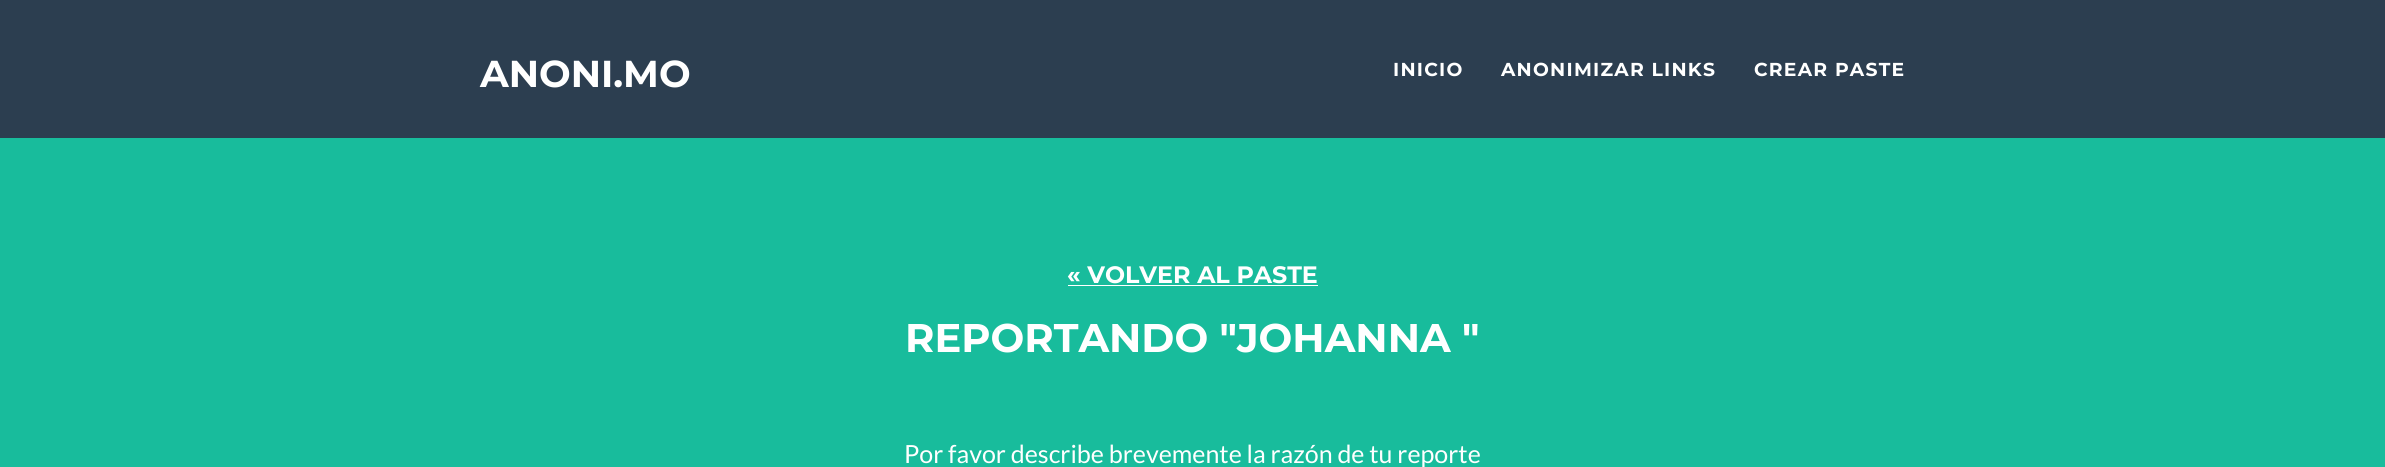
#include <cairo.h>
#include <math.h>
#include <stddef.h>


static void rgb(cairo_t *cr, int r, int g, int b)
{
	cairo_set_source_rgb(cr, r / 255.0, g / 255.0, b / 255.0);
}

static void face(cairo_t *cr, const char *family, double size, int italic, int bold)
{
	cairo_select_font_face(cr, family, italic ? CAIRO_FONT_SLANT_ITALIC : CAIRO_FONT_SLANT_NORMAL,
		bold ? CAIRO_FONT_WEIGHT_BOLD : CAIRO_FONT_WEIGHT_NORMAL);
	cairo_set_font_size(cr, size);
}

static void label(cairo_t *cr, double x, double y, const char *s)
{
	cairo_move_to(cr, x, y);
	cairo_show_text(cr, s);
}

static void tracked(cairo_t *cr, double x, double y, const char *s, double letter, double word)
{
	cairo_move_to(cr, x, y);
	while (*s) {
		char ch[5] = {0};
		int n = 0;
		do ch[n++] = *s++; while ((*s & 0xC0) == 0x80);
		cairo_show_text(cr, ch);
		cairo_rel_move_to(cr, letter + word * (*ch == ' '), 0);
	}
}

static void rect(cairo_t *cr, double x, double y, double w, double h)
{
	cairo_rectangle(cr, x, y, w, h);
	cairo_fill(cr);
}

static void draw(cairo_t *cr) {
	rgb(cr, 24, 188, 156);
	cairo_paint(cr);
	rgb(cr, 44, 62, 80);
	rect(cr, 0, 0, 2385, 138);
	face(cr, "Montserrat", 37.5, 0, 1);
	rgb(cr, 255, 255, 255);
	label(cr, 480, 87, "ANONI.MO");
	face(cr, "Montserrat", 18.75, 0, 1);
	tracked(cr, 1393, 76, "INICIO", 1.25, 0);
	tracked(cr, 1501, 76, "ANONIMIZAR LINKS", 1.25, 0);
	tracked(cr, 1754, 76, "CREAR PASTE", 1.25, 0);
	face(cr, "Montserrat", 23.75, 0, 1);
	label(cr, 1067, 283, "« VOLVER AL PASTE");
	rect(cr, 1068, 285, 250, 1);
	face(cr, "Montserrat", 40, 0, 1);
	label(cr, 905, 352, "REPORTANDO \"JOHANNA \"");
	face(cr, "Lato", 25, 0, 0);
	label(cr, 904, 463, "Por favor describe brevemente la razón de tu reporte");
}

int main(void) {
	cairo_surface_t *surface = cairo_image_surface_create(CAIRO_FORMAT_RGB24, 2385, 467);
	cairo_t *cr = cairo_create(surface);
	cairo_font_options_t *options = cairo_font_options_create();
	cairo_font_options_set_hint_metrics(options, CAIRO_HINT_METRICS_OFF);
	cairo_font_options_set_hint_style(options, CAIRO_HINT_STYLE_NONE);
	cairo_set_font_options(cr, options);
	cairo_set_miter_limit(cr, 4);
	draw(cr);
	cairo_surface_write_to_png(surface, "render.png");
	cairo_font_options_destroy(options);
	cairo_destroy(cr);
	cairo_surface_destroy(surface);
	return 0;
}
